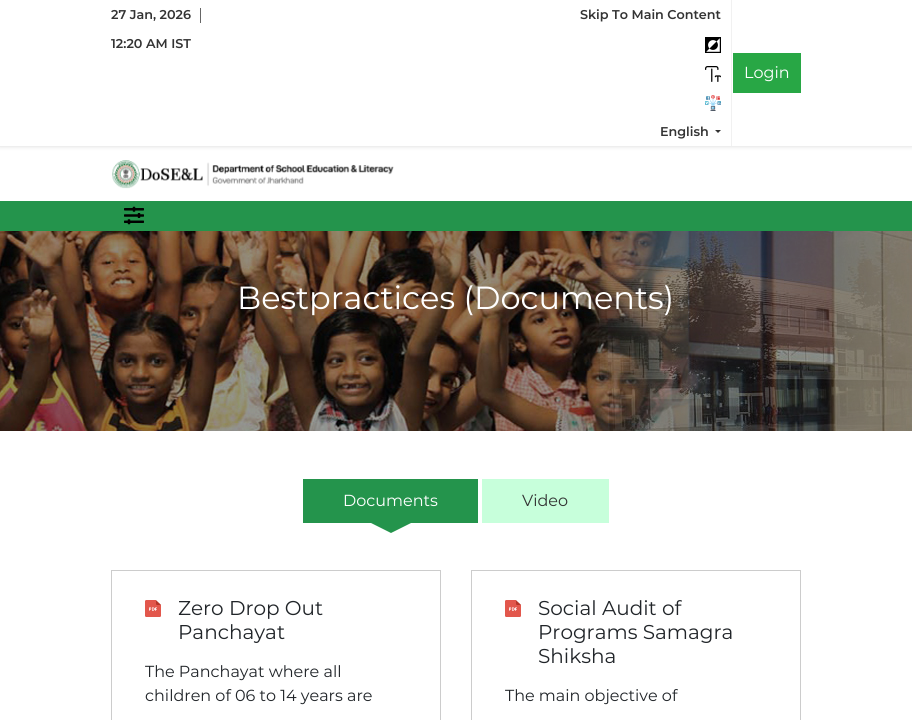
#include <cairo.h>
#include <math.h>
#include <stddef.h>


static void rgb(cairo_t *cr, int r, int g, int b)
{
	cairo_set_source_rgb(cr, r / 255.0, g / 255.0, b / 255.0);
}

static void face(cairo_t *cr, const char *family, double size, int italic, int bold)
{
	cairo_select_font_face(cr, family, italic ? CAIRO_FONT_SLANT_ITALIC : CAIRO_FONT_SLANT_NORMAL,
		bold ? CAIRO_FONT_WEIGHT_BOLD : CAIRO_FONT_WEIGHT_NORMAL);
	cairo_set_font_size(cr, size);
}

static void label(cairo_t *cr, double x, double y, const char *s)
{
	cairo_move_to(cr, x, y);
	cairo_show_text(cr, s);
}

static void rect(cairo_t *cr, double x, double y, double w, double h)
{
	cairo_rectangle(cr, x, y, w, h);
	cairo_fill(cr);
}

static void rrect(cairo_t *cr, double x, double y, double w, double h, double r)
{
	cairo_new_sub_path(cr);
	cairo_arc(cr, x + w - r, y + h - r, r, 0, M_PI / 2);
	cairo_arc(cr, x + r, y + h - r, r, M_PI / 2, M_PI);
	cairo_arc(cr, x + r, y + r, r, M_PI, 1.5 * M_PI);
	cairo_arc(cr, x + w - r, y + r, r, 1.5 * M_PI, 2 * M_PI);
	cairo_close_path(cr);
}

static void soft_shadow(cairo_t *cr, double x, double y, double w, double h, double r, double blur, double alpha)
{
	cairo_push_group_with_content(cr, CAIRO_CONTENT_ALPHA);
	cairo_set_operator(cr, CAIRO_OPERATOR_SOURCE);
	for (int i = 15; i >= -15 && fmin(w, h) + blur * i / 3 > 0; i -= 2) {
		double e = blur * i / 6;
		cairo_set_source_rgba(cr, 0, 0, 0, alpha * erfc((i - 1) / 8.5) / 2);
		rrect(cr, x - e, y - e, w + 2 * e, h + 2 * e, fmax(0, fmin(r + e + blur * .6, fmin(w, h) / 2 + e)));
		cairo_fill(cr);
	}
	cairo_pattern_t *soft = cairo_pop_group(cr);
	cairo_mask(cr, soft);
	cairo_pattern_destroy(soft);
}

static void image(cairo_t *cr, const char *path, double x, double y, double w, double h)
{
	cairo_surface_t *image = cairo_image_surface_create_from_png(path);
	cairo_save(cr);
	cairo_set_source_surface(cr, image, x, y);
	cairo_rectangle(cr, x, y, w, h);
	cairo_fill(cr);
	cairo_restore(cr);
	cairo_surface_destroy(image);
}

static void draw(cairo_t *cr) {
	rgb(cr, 255, 255, 255);
	cairo_paint(cr);
	cairo_save(cr);
	cairo_rectangle(cr, 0, 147, 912, 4);
	cairo_clip(cr);
	rgb(cr, 238, 238, 238);
	soft_shadow(cr, 0, 1, 912, 147, 0, 1.5, 1);
	cairo_restore(cr);
	rgb(cr, 238, 238, 238);
	rect(cr, 0, 146, 912, 1);
	face(cr, "Montserrat SemiBold", 12.75, 0, 0);
	rgb(cr, 51, 51, 51);
	label(cr, 111, 19, "27 Jan, 2026");
	rgb(cr, 102, 102, 102);
	rect(cr, 200, 8, 1, 15);
	rgb(cr, 51, 51, 51);
	label(cr, 111, 48, "12:20 AM IST");
	rgb(cr, 241, 241, 241);
	rect(cr, 731, 0, 1, 29);
	rgb(cr, 51, 51, 51);
	label(cr, 580, 19, "Skip To Main Content");
	rgb(cr, 241, 241, 241);
	rect(cr, 731, 29, 1, 117);
	image(cr, "image0.png", 705, 66, 16, 16);
	image(cr, "image1.png", 705, 37, 16, 16);
	image(cr, "image2.png", 705, 95, 16, 16);
	rgb(cr, 51, 51, 51);
	label(cr, 660, 136, "English");
	cairo_new_path(cr);
	cairo_move_to(cr, 715, 130);
	cairo_line_to(cr, 721, 130);
	cairo_line_to(cr, 718, 133);
	cairo_close_path(cr);
	cairo_fill(cr);
	rgb(cr, 40, 167, 69);
	rect(cr, 733, 53, 68, 40);
	face(cr, "Montserrat", 16, 0, 0);
	rgb(cr, 255, 255, 255);
	label(cr, 744, 78, "Login");
	image(cr, "image3.png", 112, 160, 282, 29);
	rgb(cr, 36, 148, 76);
	rect(cr, 0, 201, 912, 30);
	image(cr, "image4.png", 124, 206, 20, 19);
	image(cr, "image5.png", 0, 231, 912, 200);
	face(cr, "Montserrat", 32, 0, 0);
	rgb(cr, 255, 255, 255);
	label(cr, 237, 309, "Bestpractices (Documents)");
	rgb(cr, 36, 148, 76);
	rect(cr, 303, 479, 175, 44);
	face(cr, "Montserrat", 16, 0, 0);
	rgb(cr, 255, 255, 255);
	label(cr, 343, 506, "Documents");
	rgb(cr, 36, 148, 76);
	cairo_new_path(cr);
	cairo_move_to(cr, 371, 523);
	cairo_line_to(cr, 411, 523);
	cairo_line_to(cr, 391, 533);
	cairo_close_path(cr);
	cairo_fill(cr);
	rgb(cr, 199, 255, 219);
	rect(cr, 482, 479, 127, 44);
	rgb(cr, 51, 51, 51);
	label(cr, 522, 506, "Video");
	cairo_rectangle(cr, 111.5, 570.5, 329, 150);
	rgb(cr, 204, 204, 204);
	cairo_set_line_width(cr, 1);
	cairo_stroke(cr);
	image(cr, "image6.png", 145, 600, 16, 17);
	face(cr, "Montserrat", 20, 0, 0);
	rgb(cr, 33, 37, 41);
	label(cr, 178, 615, "Zero Drop Out");
	label(cr, 178, 639, "Panchayat");
	face(cr, "Montserrat", 16, 0, 0);
	label(cr, 145, 677, "The Panchayat where all");
	label(cr, 145, 701, "children of 06 to 14 years are");
	cairo_rectangle(cr, 471.5, 570.5, 329, 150);
	rgb(cr, 204, 204, 204);
	cairo_stroke(cr);
	image(cr, "image7.png", 505, 600, 16, 17);
	face(cr, "Montserrat", 20, 0, 0);
	rgb(cr, 33, 37, 41);
	label(cr, 538, 615, "Social Audit of");
	label(cr, 538, 639, "Programs Samagra");
	label(cr, 538, 663, "Shiksha");
	face(cr, "Montserrat", 16, 0, 0);
	label(cr, 505, 701, "The main objective of");
}

int main(void) {
	cairo_surface_t *surface = cairo_image_surface_create(CAIRO_FORMAT_RGB24, 912, 720);
	cairo_t *cr = cairo_create(surface);
	cairo_font_options_t *options = cairo_font_options_create();
	cairo_font_options_set_hint_metrics(options, CAIRO_HINT_METRICS_OFF);
	cairo_font_options_set_hint_style(options, CAIRO_HINT_STYLE_NONE);
	cairo_set_font_options(cr, options);
	cairo_set_miter_limit(cr, 4);
	draw(cr);
	cairo_surface_write_to_png(surface, "render.png");
	cairo_font_options_destroy(options);
	cairo_destroy(cr);
	cairo_surface_destroy(surface);
	return 0;
}
